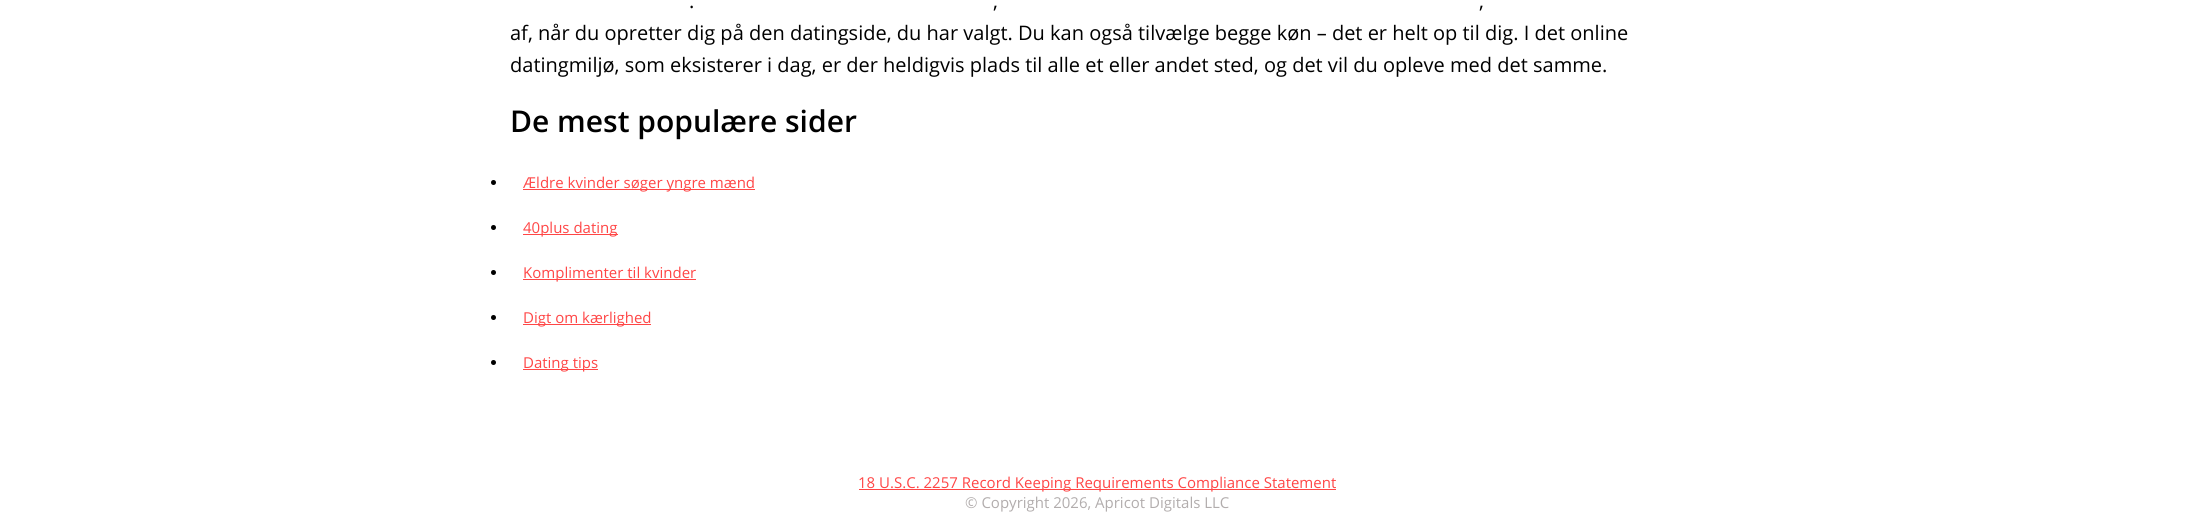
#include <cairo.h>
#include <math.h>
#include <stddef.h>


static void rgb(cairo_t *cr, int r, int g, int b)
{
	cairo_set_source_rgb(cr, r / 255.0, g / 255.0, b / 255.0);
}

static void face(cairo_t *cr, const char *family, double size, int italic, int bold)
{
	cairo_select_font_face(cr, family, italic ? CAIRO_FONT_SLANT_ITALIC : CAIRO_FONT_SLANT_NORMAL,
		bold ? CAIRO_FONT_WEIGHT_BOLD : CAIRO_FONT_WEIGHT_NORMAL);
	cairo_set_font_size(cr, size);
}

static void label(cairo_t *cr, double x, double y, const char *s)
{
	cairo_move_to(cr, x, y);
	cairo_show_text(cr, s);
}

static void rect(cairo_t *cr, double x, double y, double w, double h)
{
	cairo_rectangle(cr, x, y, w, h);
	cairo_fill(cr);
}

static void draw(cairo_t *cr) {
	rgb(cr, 255, 255, 255);
	cairo_paint(cr);
	face(cr, "Open Sans", 20, 0, 0);
	rgb(cr, 0, 0, 0);
	label(cr, 689, 8, ".");
	label(cr, 993, 8, ",");
	label(cr, 1479, 8, ",");
	label(cr, 510, 40, "af, når du opretter dig på den datingside, du har valgt. Du kan også tilvælge begge køn – det er helt op til dig. I det online");
	label(cr, 510, 72, "datingmiljø, som eksisterer i dag, er der heldigvis plads til alle et eller andet sted, og det vil du opleve med det samme.");
	face(cr, "Open Sans SemiBold", 30, 0, 0);
	label(cr, 510, 132, "De mest populære sider");
	cairo_new_path(cr);
	cairo_arc(cr, 493.5, 182.5, 2.5, 0, 2 * M_PI);
	cairo_fill(cr);
	rgb(cr, 255, 70, 70);
	rect(cr, 523, 189, 232, 1);
	face(cr, "Open Sans", 15, 0, 0);
	label(cr, 523, 188, "Ældre kvinder søger yngre mænd");
	rgb(cr, 0, 0, 0);
	cairo_new_path(cr);
	cairo_arc(cr, 493.5, 227.5, 2.5, 0, 2 * M_PI);
	cairo_fill(cr);
	rgb(cr, 255, 70, 70);
	rect(cr, 523, 234, 95, 1);
	label(cr, 523, 233, "40plus dating");
	rgb(cr, 0, 0, 0);
	cairo_new_path(cr);
	cairo_arc(cr, 493.5, 272.5, 2.5, 0, 2 * M_PI);
	cairo_fill(cr);
	rgb(cr, 255, 70, 70);
	rect(cr, 523, 279, 173, 1);
	label(cr, 523, 278, "Komplimenter til kvinder");
	rgb(cr, 0, 0, 0);
	cairo_new_path(cr);
	cairo_arc(cr, 493.5, 317.5, 2.5, 0, 2 * M_PI);
	cairo_fill(cr);
	rgb(cr, 255, 70, 70);
	rect(cr, 523, 324, 128, 1);
	label(cr, 523, 323, "Digt om kærlighed");
	rgb(cr, 0, 0, 0);
	cairo_new_path(cr);
	cairo_arc(cr, 493.5, 362.5, 2.5, 0, 2 * M_PI);
	cairo_fill(cr);
	rgb(cr, 255, 70, 70);
	rect(cr, 523, 369, 75, 1);
	label(cr, 523, 368, "Dating tips");
	rect(cr, 859, 489, 477, 1);
	label(cr, 858, 488, "18 U.S.C. 2257 Record Keeping Requirements Compliance Statement");
	rgb(cr, 178, 173, 173);
	label(cr, 965, 508, "© Copyright 2026, Apricot Digitals LLC");
}

int main(void) {
	cairo_surface_t *surface = cairo_image_surface_create(CAIRO_FORMAT_RGB24, 2194, 530);
	cairo_t *cr = cairo_create(surface);
	cairo_font_options_t *options = cairo_font_options_create();
	cairo_font_options_set_hint_metrics(options, CAIRO_HINT_METRICS_OFF);
	cairo_font_options_set_hint_style(options, CAIRO_HINT_STYLE_NONE);
	cairo_set_font_options(cr, options);
	cairo_set_miter_limit(cr, 4);
	draw(cr);
	cairo_surface_write_to_png(surface, "render.png");
	cairo_font_options_destroy(options);
	cairo_destroy(cr);
	cairo_surface_destroy(surface);
	return 0;
}
